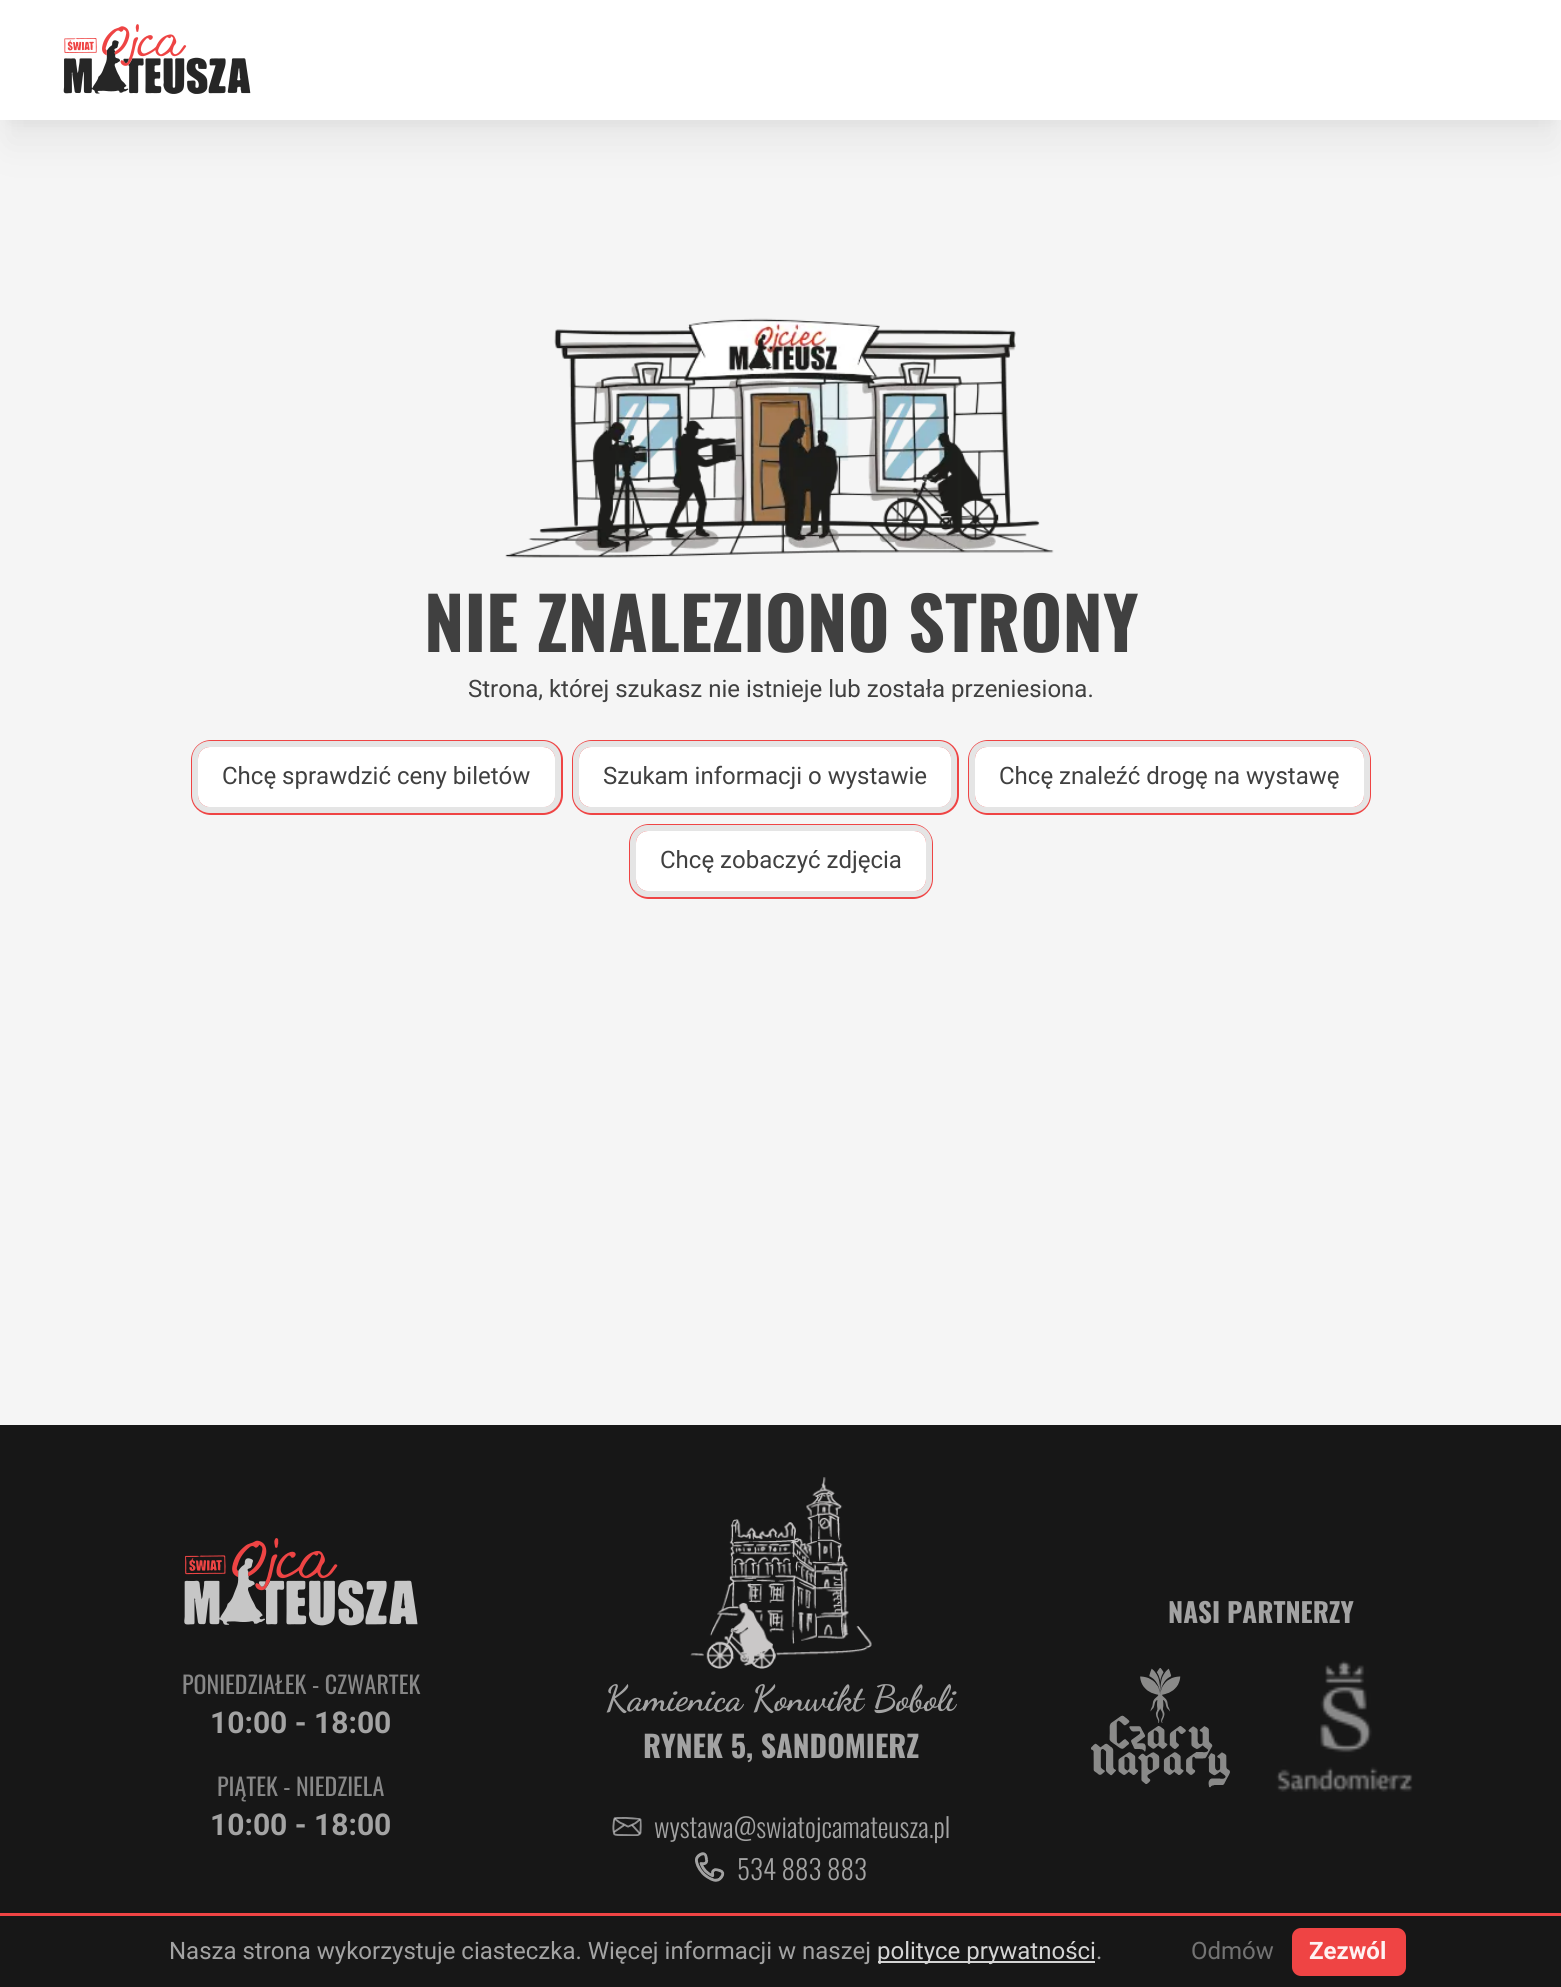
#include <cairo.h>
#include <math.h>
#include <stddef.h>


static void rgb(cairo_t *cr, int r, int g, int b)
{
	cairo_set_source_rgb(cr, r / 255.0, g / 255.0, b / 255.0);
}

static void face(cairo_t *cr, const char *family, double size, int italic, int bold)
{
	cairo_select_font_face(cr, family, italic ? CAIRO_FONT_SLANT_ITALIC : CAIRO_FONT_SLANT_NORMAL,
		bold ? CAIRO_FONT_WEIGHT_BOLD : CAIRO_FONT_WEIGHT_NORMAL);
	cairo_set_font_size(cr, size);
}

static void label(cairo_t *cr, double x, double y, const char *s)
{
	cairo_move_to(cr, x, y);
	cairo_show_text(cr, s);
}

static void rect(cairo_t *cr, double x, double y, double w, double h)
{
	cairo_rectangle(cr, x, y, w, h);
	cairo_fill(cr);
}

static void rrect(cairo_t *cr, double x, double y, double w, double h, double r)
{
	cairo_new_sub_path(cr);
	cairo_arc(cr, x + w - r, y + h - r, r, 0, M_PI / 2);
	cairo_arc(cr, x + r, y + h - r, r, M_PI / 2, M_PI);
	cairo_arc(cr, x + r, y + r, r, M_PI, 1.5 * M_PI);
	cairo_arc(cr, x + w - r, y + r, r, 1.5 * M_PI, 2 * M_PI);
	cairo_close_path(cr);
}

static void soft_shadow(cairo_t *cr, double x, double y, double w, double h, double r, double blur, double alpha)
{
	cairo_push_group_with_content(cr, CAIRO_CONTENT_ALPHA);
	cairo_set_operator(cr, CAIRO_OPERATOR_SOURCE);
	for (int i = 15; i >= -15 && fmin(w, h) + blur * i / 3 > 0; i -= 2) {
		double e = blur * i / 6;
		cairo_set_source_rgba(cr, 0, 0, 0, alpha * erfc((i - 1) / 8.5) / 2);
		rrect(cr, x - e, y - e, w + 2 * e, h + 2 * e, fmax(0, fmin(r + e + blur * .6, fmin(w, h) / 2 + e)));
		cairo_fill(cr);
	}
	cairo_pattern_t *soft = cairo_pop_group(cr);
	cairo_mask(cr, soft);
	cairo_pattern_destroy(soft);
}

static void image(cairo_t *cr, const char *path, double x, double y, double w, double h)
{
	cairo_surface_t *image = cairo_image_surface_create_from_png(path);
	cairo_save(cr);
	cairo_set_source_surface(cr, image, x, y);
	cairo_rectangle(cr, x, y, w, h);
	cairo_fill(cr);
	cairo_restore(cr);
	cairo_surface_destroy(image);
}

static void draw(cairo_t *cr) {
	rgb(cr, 245, 245, 245);
	cairo_paint(cr);
	rgb(cr, 115, 115, 115);
	soft_shadow(cr, 9, 21, 1544, 102, 0, 7.5, 0.1);
	soft_shadow(cr, 8, 38, 1546, 105, 0, 19, 0.1);
	rgb(cr, 255, 255, 255);
	rect(cr, 0, 0, 1561, 120);
	image(cr, "image0.png", 63, 24, 188, 70);
	image(cr, "image1.png", 505, 318, 549, 240);
	face(cr, "Oswald", 72, 0, 1);
	rgb(cr, 64, 64, 64);
	label(cr, 424, 652, "NIE ZNALEZIONO STRONY");
	face(cr, "Roboto", 24, 0, 0);
	label(cr, 468, 697, "Strona, której szukasz nie istnieje lub została przeniesiona.");
	rrect(cr, 195, 744, 364, 67, 16);
	rgb(cr, 239, 68, 68);
	cairo_set_line_width(cr, 8);
	cairo_stroke(cr);
	rrect(cr, 195, 744, 363, 66, 15);
	rgb(cr, 229, 229, 229);
	cairo_set_line_width(cr, 6);
	cairo_stroke(cr);
	rgb(cr, 255, 255, 255);
	rrect(cr, 198, 747, 357, 60, 12);
	cairo_fill(cr);
	rgb(cr, 64, 64, 64);
	label(cr, 222, 784, "Chcę sprawdzić ceny biletów");
	rrect(cr, 576, 744, 379, 67, 16);
	rgb(cr, 239, 68, 68);
	cairo_set_line_width(cr, 8);
	cairo_stroke(cr);
	rrect(cr, 576, 744, 378, 66, 15);
	rgb(cr, 229, 229, 229);
	cairo_set_line_width(cr, 6);
	cairo_stroke(cr);
	rgb(cr, 255, 255, 255);
	rrect(cr, 579, 747, 372, 60, 12);
	cairo_fill(cr);
	rgb(cr, 64, 64, 64);
	label(cr, 603, 784, "Szukam informacji o wystawie");
	rrect(cr, 972, 744, 395, 67, 16);
	rgb(cr, 239, 68, 68);
	cairo_set_line_width(cr, 8);
	cairo_stroke(cr);
	rrect(cr, 972, 744, 395, 66, 15);
	rgb(cr, 229, 229, 229);
	cairo_set_line_width(cr, 6);
	cairo_stroke(cr);
	rgb(cr, 255, 255, 255);
	rrect(cr, 975, 747, 389, 60, 12);
	cairo_fill(cr);
	rgb(cr, 64, 64, 64);
	label(cr, 999, 784, "Chcę znaleźć drogę na wystawę");
	rrect(cr, 633, 828, 296, 67, 16);
	rgb(cr, 239, 68, 68);
	cairo_set_line_width(cr, 8);
	cairo_stroke(cr);
	rrect(cr, 633, 828, 296, 66, 15);
	rgb(cr, 229, 229, 229);
	cairo_set_line_width(cr, 6);
	cairo_stroke(cr);
	rgb(cr, 255, 255, 255);
	rrect(cr, 636, 831, 290, 60, 12);
	cairo_fill(cr);
	rgb(cr, 64, 64, 64);
	label(cr, 660, 868, "Chcę zobaczyć zdjęcia");
	rgb(cr, 23, 23, 23);
	rect(cr, 0, 1425, 1561, 488);
	face(cr, "Oswald", 27, 0, 1);
	rgb(cr, 163, 163, 163);
	label(cr, 1168, 1623, "NASI PARTNERZY");
	image(cr, "image2.png", 1091, 1668, 139, 120);
	image(cr, "image3.png", 1276, 1660, 137, 132);
	image(cr, "image4.png", 184, 1538, 234, 88);
	face(cr, "Oswald", 24, 0, 0);
	rgb(cr, 135, 135, 135);
	label(cr, 182, 1694, "PONIEDZIAŁEK - CZWARTEK");
	face(cr, "Roboto", 30, 0, 1);
	rgb(cr, 163, 163, 163);
	label(cr, 210, 1733, "10:00 - 18:00");
	face(cr, "Oswald", 24, 0, 0);
	rgb(cr, 135, 135, 135);
	label(cr, 217, 1796, "PIĄTEK - NIEDZIELA");
	face(cr, "Roboto", 30, 0, 1);
	rgb(cr, 163, 163, 163);
	label(cr, 210, 1835, "10:00 - 18:00");
	image(cr, "image5.png", 690, 1477, 182, 192);
	face(cr, "Dancing Script", 36, 0, 1);
	label(cr, 605, 1710, "Kamienica Konwikt Boboli");
	face(cr, "Oswald", 30, 0, 1);
	label(cr, 643, 1758, "RYNEK 5, SANDOMIERZ");
	image(cr, "image6.png", 612, 1817, 30, 19);
	face(cr, "Oswald Light", 27, 0, 0);
	label(cr, 654, 1838, "wystawa@swiatojcamateusza.pl");
	image(cr, "image7.png", 695, 1852, 30, 30);
	label(cr, 737, 1880, "534 883 883");
	rgb(cr, 23, 23, 23);
	rect(cr, 0, 1916, 1561, 71);
	rgb(cr, 239, 68, 68);
	rect(cr, 0, 1913, 1561, 3);
	face(cr, "Roboto", 24, 0, 0);
	rgb(cr, 163, 163, 163);
	label(cr, 169, 1959, "Nasza strona wykorzystuje ciasteczka. Więcej informacji w naszej");
	rgb(cr, 212, 212, 212);
	rect(cr, 878, 1961, 217, 2);
	label(cr, 877, 1959, "polityce prywatności");
	rgb(cr, 163, 163, 163);
	label(cr, 1096, 1959, ".");
	rgb(cr, 115, 115, 115);
	label(cr, 1191, 1959, "Odmów");
	rgb(cr, 239, 68, 68);
	rrect(cr, 1292, 1928, 114, 48, 9);
	cairo_fill(cr);
	face(cr, "Roboto", 24, 0, 1);
	rgb(cr, 254, 242, 242);
	label(cr, 1309, 1959, "Zezwól");
}

int main(void) {
	cairo_surface_t *surface = cairo_image_surface_create(CAIRO_FORMAT_RGB24, 1561, 1987);
	cairo_t *cr = cairo_create(surface);
	cairo_font_options_t *options = cairo_font_options_create();
	cairo_font_options_set_hint_metrics(options, CAIRO_HINT_METRICS_OFF);
	cairo_font_options_set_hint_style(options, CAIRO_HINT_STYLE_NONE);
	cairo_set_font_options(cr, options);
	cairo_set_miter_limit(cr, 4);
	draw(cr);
	cairo_surface_write_to_png(surface, "render.png");
	cairo_font_options_destroy(options);
	cairo_destroy(cr);
	cairo_surface_destroy(surface);
	return 0;
}
